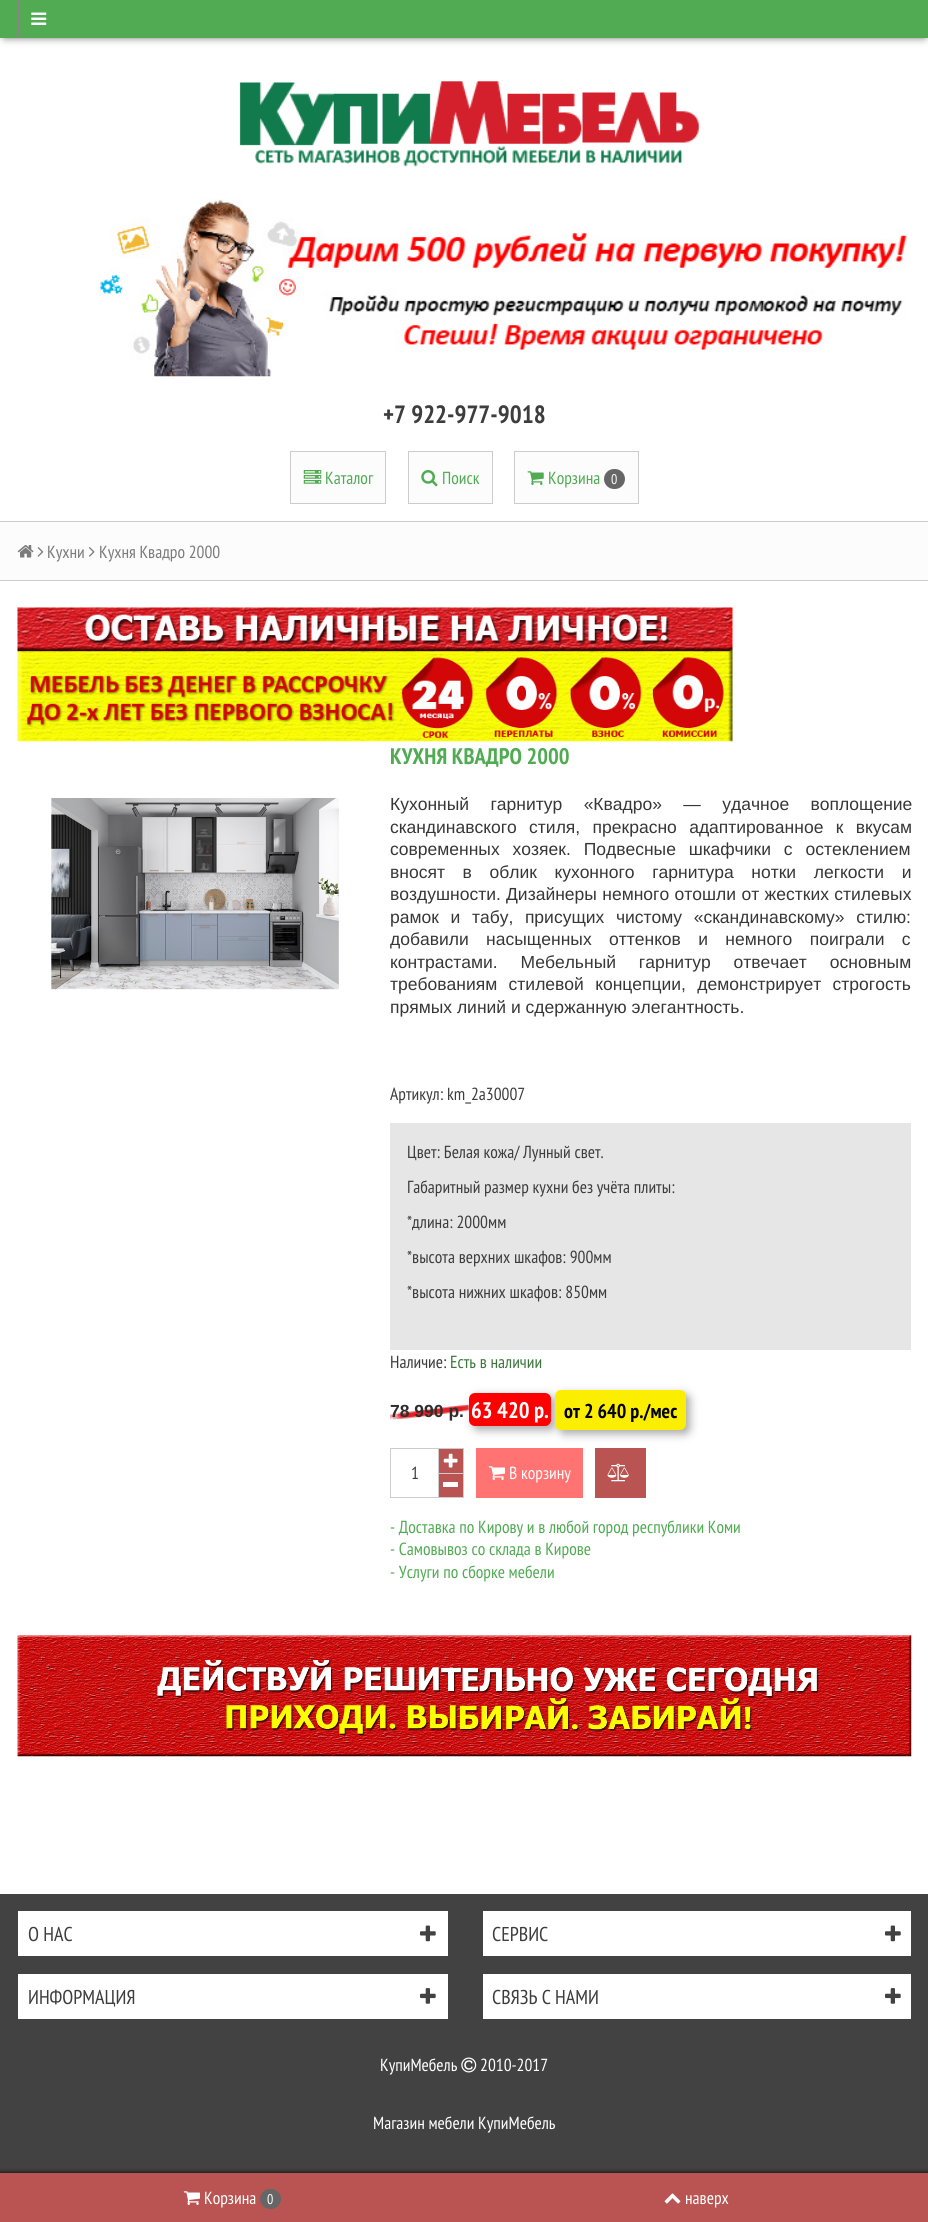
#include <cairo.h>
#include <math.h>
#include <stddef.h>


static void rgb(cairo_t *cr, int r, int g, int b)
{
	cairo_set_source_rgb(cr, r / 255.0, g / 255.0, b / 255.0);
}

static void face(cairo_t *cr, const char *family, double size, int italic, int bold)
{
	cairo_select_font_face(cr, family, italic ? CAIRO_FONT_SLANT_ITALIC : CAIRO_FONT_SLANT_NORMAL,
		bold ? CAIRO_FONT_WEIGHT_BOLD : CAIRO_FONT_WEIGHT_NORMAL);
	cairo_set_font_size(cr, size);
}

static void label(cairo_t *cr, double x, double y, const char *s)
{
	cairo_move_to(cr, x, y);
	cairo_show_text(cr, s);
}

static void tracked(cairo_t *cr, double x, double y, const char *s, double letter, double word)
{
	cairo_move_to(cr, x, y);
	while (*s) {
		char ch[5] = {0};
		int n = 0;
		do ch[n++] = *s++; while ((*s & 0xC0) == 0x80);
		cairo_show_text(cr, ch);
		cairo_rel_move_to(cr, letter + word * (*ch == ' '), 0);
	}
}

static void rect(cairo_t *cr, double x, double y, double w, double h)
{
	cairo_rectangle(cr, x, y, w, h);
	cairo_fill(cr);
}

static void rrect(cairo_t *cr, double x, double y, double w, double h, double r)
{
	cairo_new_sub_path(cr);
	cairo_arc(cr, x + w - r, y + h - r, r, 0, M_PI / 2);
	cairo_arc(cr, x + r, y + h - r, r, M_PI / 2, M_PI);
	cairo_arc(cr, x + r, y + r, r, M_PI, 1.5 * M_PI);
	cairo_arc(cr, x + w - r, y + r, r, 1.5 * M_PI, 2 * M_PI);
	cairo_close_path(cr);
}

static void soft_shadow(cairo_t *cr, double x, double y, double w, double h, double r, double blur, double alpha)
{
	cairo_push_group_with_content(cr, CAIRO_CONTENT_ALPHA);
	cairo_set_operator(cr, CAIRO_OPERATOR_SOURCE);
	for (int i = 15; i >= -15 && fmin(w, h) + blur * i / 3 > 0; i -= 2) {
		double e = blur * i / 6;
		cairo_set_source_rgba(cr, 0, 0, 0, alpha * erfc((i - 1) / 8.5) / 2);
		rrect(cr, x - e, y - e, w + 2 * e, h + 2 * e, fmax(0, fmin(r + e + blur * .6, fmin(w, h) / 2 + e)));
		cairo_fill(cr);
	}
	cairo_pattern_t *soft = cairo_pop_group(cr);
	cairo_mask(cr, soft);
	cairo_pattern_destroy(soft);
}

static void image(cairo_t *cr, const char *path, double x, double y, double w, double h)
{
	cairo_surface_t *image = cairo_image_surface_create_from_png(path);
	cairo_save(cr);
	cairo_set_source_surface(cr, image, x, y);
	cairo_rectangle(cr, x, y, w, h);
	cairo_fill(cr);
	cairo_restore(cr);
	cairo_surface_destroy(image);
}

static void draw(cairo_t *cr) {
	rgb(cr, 66, 66, 66);
	cairo_paint(cr);
	rgb(cr, 255, 255, 255);
	rect(cr, 0, 38, 928, 483);
	rgb(cr, 0, 0, 0);
	soft_shadow(cr, 5, 8, 919, 27, 0, 5, 1);
	rgb(cr, 80, 171, 82);
	rect(cr, 0, 0, 928, 38);
	rgb(cr, 138, 130, 133);
	rect(cr, 59, 0, 1, 38);
	rect(cr, 18, 0, 1, 38);
	image(cr, "image0.png", 31, 12, 16, 13);
	image(cr, "image1.png", 239, 81, 460, 86);
	image(cr, "image2.png", 99, 198, 808, 179);
	face(cr, "PT Sans Narrow", 25, 0, 1);
	rgb(cr, 61, 61, 61);
	label(cr, 383, 423, "+7 922-977-9018");
	rgb(cr, 252, 252, 252);
	cairo_rectangle(cr, 290.5, 451.5, 95, 52);
	cairo_fill_preserve(cr);
	rgb(cr, 204, 204, 204);
	cairo_set_line_width(cr, 1);
	cairo_stroke(cr);
	image(cr, "image3.png", 303, 470, 19, 14);
	face(cr, "PT Sans Narrow", 17.5, 0, 0);
	rgb(cr, 80, 171, 82);
	label(cr, 325, 484, "Каталог");
	rgb(cr, 252, 252, 252);
	cairo_rectangle(cr, 408.5, 451.5, 84, 52);
	cairo_fill_preserve(cr);
	rgb(cr, 204, 204, 204);
	cairo_stroke(cr);
	image(cr, "image4.png", 421, 470, 17, 17);
	rgb(cr, 80, 171, 82);
	label(cr, 442, 484, "Поиск");
	rgb(cr, 252, 252, 252);
	cairo_rectangle(cr, 514.5, 451.5, 124, 52);
	cairo_fill_preserve(cr);
	rgb(cr, 204, 204, 204);
	cairo_stroke(cr);
	image(cr, "image5.png", 527, 471, 17, 14);
	rgb(cr, 80, 171, 82);
	label(cr, 548, 484, "Корзина");
	rgb(cr, 102, 102, 102);
	rrect(cr, 604, 469, 21, 20, 10);
	cairo_fill(cr);
	face(cr, "PT Sans Narrow", 14, 0, 0);
	rgb(cr, 255, 255, 255);
	label(cr, 611, 484, "0");
	rgb(cr, 252, 252, 252);
	rect(cr, 0, 522, 928, 58);
	rgb(cr, 204, 204, 204);
	rect(cr, 0, 521, 928, 1);
	rect(cr, 0, 580, 928, 1);
	image(cr, "image6.png", 17, 545, 17, 13);
	image(cr, "image7.png", 37, 547, 7, 10);
	face(cr, "PT Sans Narrow", 17.5, 0, 0);
	rgb(cr, 123, 123, 123);
	label(cr, 47, 558, "Кухни");
	image(cr, "image8.png", 88, 547, 7, 10);
	label(cr, 99, 558, "Кухня Квадро 2000");
	rgb(cr, 255, 255, 255);
	rect(cr, 0, 581, 928, 1313);
	image(cr, "image9.png", 17, 607, 716, 135);
	image(cr, "image10.png", 51, 798, 288, 192);
	face(cr, "PT Sans Narrow", 22.5, 0, 1);
	rgb(cr, 80, 171, 82);
	label(cr, 390, 764, "КУХНЯ КВАДРО 2000");
	face(cr, "Liberation Sans", 17.5, 0, 0);
	rgb(cr, 55, 55, 55);
	tracked(cr, 390, 810, "Кухонный гарнитур «Квадро» — удачное воплощение", 0, 16.5);
	tracked(cr, 390, 833, "скандинавского стиля, прекрасно адаптированное к вкусам", 0, 7.5);
	tracked(cr, 390, 855, "современных хозяек. Подвесные шкафчики с остеклением", 0, 8);
	tracked(cr, 390, 878, "вносят в облик кухонного гарнитура нотки легкости и", 0, 12.75);
	label(cr, 390, 900, "воздушности.");
	tracked(cr, 506, 900, "Дизайнеры немного отошли от жестких стилевых", 0, 0.5);
	tracked(cr, 390, 923, "рамок и табу, присущих чистому «скандинавскому» стилю:", 0, 6.75);
	tracked(cr, 390, 945, "добавили насыщенных оттенков и немного поиграли с", 0, 12.5);
	tracked(cr, 390, 968, "контрастами. Мебельный гарнитур отвечает основным", 0, 18);
	tracked(cr, 390, 990, "требованиям стилевой концепции, демонстрирует строгость", 0, 6.5);
	label(cr, 390, 1013, "прямых линий и сдержанную элегантность.");
	face(cr, "PT Sans Narrow", 17.5, 0, 0);
	rgb(cr, 61, 61, 61);
	label(cr, 390, 1100, "Артикул: km_2a30007");
	rgb(cr, 230, 230, 230);
	rect(cr, 390, 1123, 521, 227);
	rgb(cr, 61, 61, 61);
	label(cr, 407, 1158, "Цвет: Белая кожа/ Лунный свет.");
	label(cr, 407, 1193, "Габаритный размер кухни без учёта плиты:");
	label(cr, 407, 1228, "*длина: 2000мм");
	label(cr, 407, 1263, "*высота верхних шкафов: 900мм");
	label(cr, 407, 1298, "*высота нижних шкафов: 850мм");
	label(cr, 390, 1368, "Наличие:");
	rgb(cr, 60, 118, 61);
	label(cr, 450, 1368, "Есть в наличии");
	image(cr, "image11.png", 390, 1404, 79, 16);
	rgb(cr, 170, 170, 170);
	soft_shadow(cr, 473, 1396, 82, 34, 6, 4.5, 1);
	rgb(cr, 255, 0, 0);
	rrect(cr, 469, 1393, 82, 33, 6);
	cairo_fill(cr);
	face(cr, "PT Sans Narrow", 22.5, 0, 1);
	rgb(cr, 255, 255, 255);
	label(cr, 471, 1418, "63 420 р.");
	rgb(cr, 170, 170, 170);
	soft_shadow(cr, 559, 1394, 131, 40, 6, 4.5, 1);
	rgb(cr, 252, 238, 0);
	rrect(cr, 555, 1390, 131, 40, 6);
	cairo_fill(cr);
	face(cr, "PT Sans Narrow", 20, 0, 1);
	rgb(cr, 0, 0, 0);
	label(cr, 564, 1418, "от 2 640 р./мес");
	face(cr, "Liberation Sans", 17.5, 0, 1);
	rgb(cr, 46, 46, 46);
	label(cr, 390, 1417, "78 990 р.");
	cairo_rectangle(cr, 390.5, 1448.5, 49, 49);
	rgb(cr, 204, 204, 204);
	cairo_stroke(cr);
	face(cr, "PT Sans Narrow", 17.5, 0, 0);
	rgb(cr, 61, 61, 61);
	label(cr, 411, 1479, "1");
	rgb(cr, 186, 84, 83);
	rect(cr, 439, 1474, 24, 23);
	cairo_rectangle(cr, 438.5, 1471.5, 25, 26);
	rgb(cr, 204, 204, 204);
	cairo_stroke(cr);
	rgb(cr, 186, 84, 83);
	cairo_rectangle(cr, 438.5, 1448.5, 25, 25);
	cairo_fill_preserve(cr);
	rgb(cr, 204, 204, 204);
	cairo_stroke(cr);
	image(cr, "image12.png", 443, 1453, 15, 15);
	rgb(cr, 255, 255, 255);
	rect(cr, 443, 1482, 15, 5);
	rgb(cr, 255, 115, 114);
	rect(cr, 476, 1448, 107, 50);
	image(cr, "image13.png", 488, 1466, 17, 14);
	rgb(cr, 255, 255, 255);
	label(cr, 509, 1479, "В корзину");
	rgb(cr, 186, 84, 83);
	rect(cr, 595, 1448, 51, 50);
	image(cr, "image14.png", 607, 1463, 22, 19);
	rgb(cr, 80, 171, 82);
	label(cr, 390, 1533, "- Доставка по Кирову и в любой город республики Коми");
	label(cr, 390, 1555, "- Самовывоз со склада в Кирове");
	label(cr, 390, 1578, "- Услуги по сборке мебели");
	image(cr, "image15.png", 17, 1635, 895, 122);
	rgb(cr, 255, 255, 255);
	rect(cr, 18, 1911, 430, 45);
	face(cr, "PT Sans Narrow", 20, 0, 0);
	rgb(cr, 61, 61, 61);
	label(cr, 28, 1941, "О НАС");
	image(cr, "image16.png", 420, 1925, 16, 17);
	rgb(cr, 255, 255, 255);
	rect(cr, 483, 1911, 428, 45);
	rgb(cr, 61, 61, 61);
	label(cr, 492, 1941, "СЕРВИС");
	image(cr, "image16.png", 885, 1925, 16, 17);
	rgb(cr, 255, 255, 255);
	rect(cr, 18, 1974, 430, 45);
	rgb(cr, 61, 61, 61);
	label(cr, 28, 2004, "ИНФОРМАЦИЯ");
	image(cr, "image17.png", 420, 1988, 16, 16);
	rgb(cr, 255, 255, 255);
	rect(cr, 483, 1974, 428, 45);
	rgb(cr, 61, 61, 61);
	label(cr, 492, 2004, "СВЯЗЬ С НАМИ");
	image(cr, "image17.png", 885, 1988, 16, 16);
	face(cr, "PT Sans Narrow", 17.5, 0, 0);
	rgb(cr, 255, 255, 255);
	label(cr, 380, 2071, "КупиМебель");
	image(cr, "image18.png", 461, 2057, 16, 16);
	label(cr, 480, 2071, "2010-2017");
	label(cr, 373, 2129, "Магазин мебели КупиМебель");
	rgb(cr, 0, 0, 0);
	soft_shadow(cr, 0, 2173, 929, 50, 0, 2.5, 1);
	rgb(cr, 186, 84, 83);
	rect(cr, 0, 2173, 928, 49);
	image(cr, "image19.png", 183, 2191, 17, 14);
	rgb(cr, 255, 255, 255);
	label(cr, 204, 2204, "Корзина");
	rgb(cr, 102, 102, 102);
	rrect(cr, 260, 2189, 21, 20, 10);
	cairo_fill(cr);
	face(cr, "PT Sans Narrow", 14, 0, 0);
	rgb(cr, 255, 255, 255);
	label(cr, 267, 2204, "0");
	image(cr, "image20.png", 664, 2193, 17, 11);
	face(cr, "PT Sans Narrow", 17.5, 0, 0);
	label(cr, 685, 2204, "наверх");
}

int main(void) {
	cairo_surface_t *surface = cairo_image_surface_create(CAIRO_FORMAT_RGB24, 928, 2222);
	cairo_t *cr = cairo_create(surface);
	cairo_font_options_t *options = cairo_font_options_create();
	cairo_font_options_set_hint_metrics(options, CAIRO_HINT_METRICS_OFF);
	cairo_font_options_set_hint_style(options, CAIRO_HINT_STYLE_NONE);
	cairo_set_font_options(cr, options);
	cairo_set_miter_limit(cr, 4);
	draw(cr);
	cairo_surface_write_to_png(surface, "render.png");
	cairo_font_options_destroy(options);
	cairo_destroy(cr);
	cairo_surface_destroy(surface);
	return 0;
}
